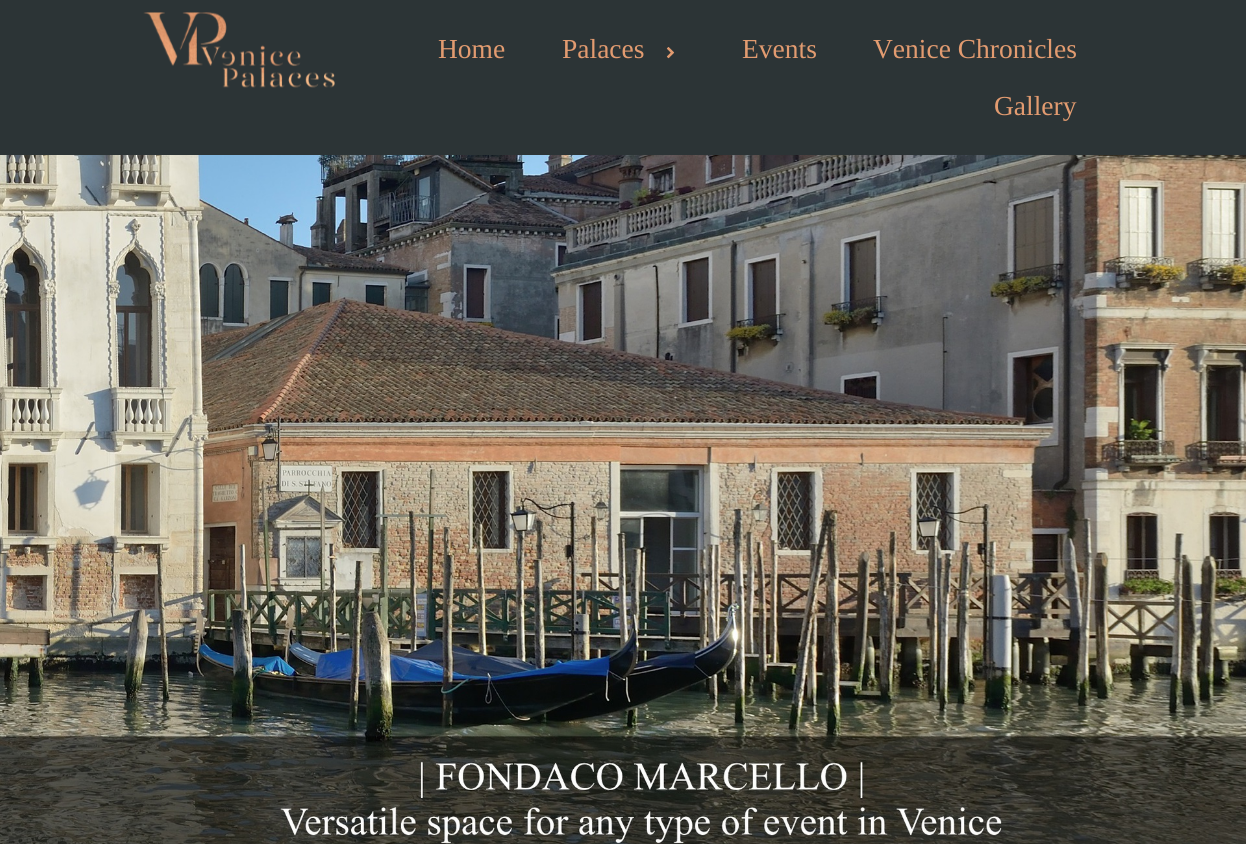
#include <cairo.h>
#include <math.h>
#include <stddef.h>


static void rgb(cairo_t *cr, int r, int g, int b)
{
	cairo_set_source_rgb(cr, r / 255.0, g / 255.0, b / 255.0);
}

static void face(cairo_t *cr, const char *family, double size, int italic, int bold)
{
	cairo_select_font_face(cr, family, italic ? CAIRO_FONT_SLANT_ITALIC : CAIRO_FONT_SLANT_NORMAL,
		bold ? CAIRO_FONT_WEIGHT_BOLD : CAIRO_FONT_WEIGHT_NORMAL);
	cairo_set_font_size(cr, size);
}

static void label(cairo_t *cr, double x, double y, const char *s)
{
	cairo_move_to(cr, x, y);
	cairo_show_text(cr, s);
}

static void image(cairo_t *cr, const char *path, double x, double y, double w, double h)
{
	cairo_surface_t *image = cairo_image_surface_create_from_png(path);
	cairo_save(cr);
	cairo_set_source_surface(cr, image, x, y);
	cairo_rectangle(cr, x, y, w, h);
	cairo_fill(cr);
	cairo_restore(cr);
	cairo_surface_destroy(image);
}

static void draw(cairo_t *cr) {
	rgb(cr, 44, 52, 54);
	cairo_paint(cr);
	image(cr, "image0.png", 143, 12, 192, 76);
	face(cr, "Liberation Serif", 27.5, 0, 0);
	rgb(cr, 226, 155, 112);
	label(cr, 438, 58, "Home");
	label(cr, 562, 58, "Palaces");
	image(cr, "image1.png", 666, 47, 9, 12);
	label(cr, 742, 58, "Events");
	label(cr, 873, 58, "Venice Chronicles");
	label(cr, 994, 115, "Gallery");
	image(cr, "image2.png", 0, 155, 1246, 689);
}

int main(void) {
	cairo_surface_t *surface = cairo_image_surface_create(CAIRO_FORMAT_RGB24, 1246, 844);
	cairo_t *cr = cairo_create(surface);
	cairo_font_options_t *options = cairo_font_options_create();
	cairo_font_options_set_hint_metrics(options, CAIRO_HINT_METRICS_OFF);
	cairo_font_options_set_hint_style(options, CAIRO_HINT_STYLE_NONE);
	cairo_set_font_options(cr, options);
	cairo_set_miter_limit(cr, 4);
	draw(cr);
	cairo_surface_write_to_png(surface, "render.png");
	cairo_font_options_destroy(options);
	cairo_destroy(cr);
	cairo_surface_destroy(surface);
	return 0;
}
